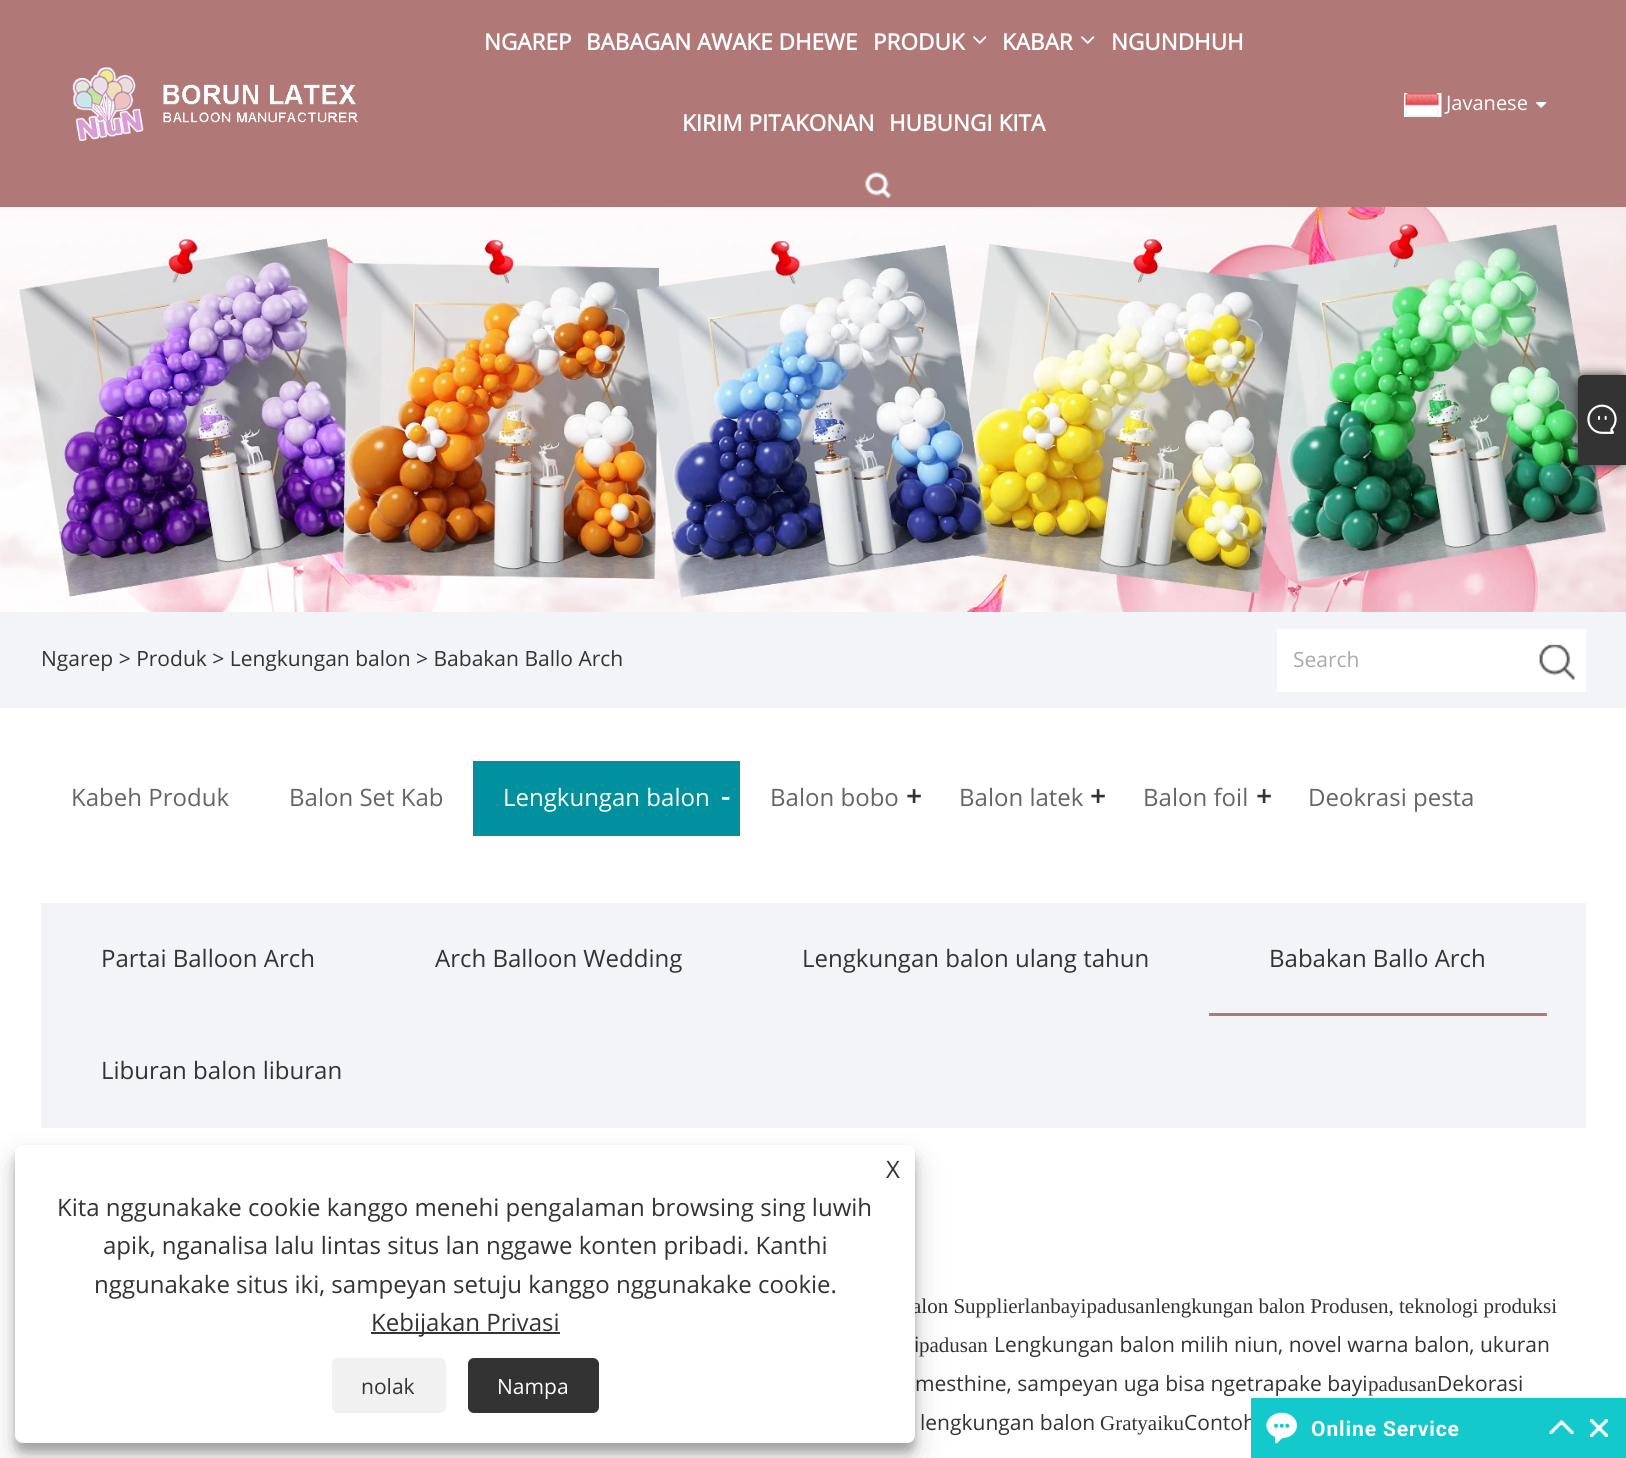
#include <cairo.h>
#include <math.h>
#include <stddef.h>


static void rgb(cairo_t *cr, int r, int g, int b)
{
	cairo_set_source_rgb(cr, r / 255.0, g / 255.0, b / 255.0);
}

static void face(cairo_t *cr, const char *family, double size, int italic, int bold)
{
	cairo_select_font_face(cr, family, italic ? CAIRO_FONT_SLANT_ITALIC : CAIRO_FONT_SLANT_NORMAL,
		bold ? CAIRO_FONT_WEIGHT_BOLD : CAIRO_FONT_WEIGHT_NORMAL);
	cairo_set_font_size(cr, size);
}

static void label(cairo_t *cr, double x, double y, const char *s)
{
	cairo_move_to(cr, x, y);
	cairo_show_text(cr, s);
}

static void tracked(cairo_t *cr, double x, double y, const char *s, double letter, double word)
{
	cairo_move_to(cr, x, y);
	while (*s) {
		char ch[5] = {0};
		int n = 0;
		do ch[n++] = *s++; while ((*s & 0xC0) == 0x80);
		cairo_show_text(cr, ch);
		cairo_rel_move_to(cr, letter + word * (*ch == ' '), 0);
	}
}

static void rect(cairo_t *cr, double x, double y, double w, double h)
{
	cairo_rectangle(cr, x, y, w, h);
	cairo_fill(cr);
}

static void rrect(cairo_t *cr, double x, double y, double w, double h, double r)
{
	cairo_new_sub_path(cr);
	cairo_arc(cr, x + w - r, y + h - r, r, 0, M_PI / 2);
	cairo_arc(cr, x + r, y + h - r, r, M_PI / 2, M_PI);
	cairo_arc(cr, x + r, y + r, r, M_PI, 1.5 * M_PI);
	cairo_arc(cr, x + w - r, y + r, r, 1.5 * M_PI, 2 * M_PI);
	cairo_close_path(cr);
}

static void soft_shadow(cairo_t *cr, double x, double y, double w, double h, double r, double blur, double alpha)
{
	cairo_push_group_with_content(cr, CAIRO_CONTENT_ALPHA);
	cairo_set_operator(cr, CAIRO_OPERATOR_SOURCE);
	for (int i = 15; i >= -15 && fmin(w, h) + blur * i / 3 > 0; i -= 2) {
		double e = blur * i / 6;
		cairo_set_source_rgba(cr, 0, 0, 0, alpha * erfc((i - 1) / 8.5) / 2);
		rrect(cr, x - e, y - e, w + 2 * e, h + 2 * e, fmax(0, fmin(r + e + blur * .6, fmin(w, h) / 2 + e)));
		cairo_fill(cr);
	}
	cairo_pattern_t *soft = cairo_pop_group(cr);
	cairo_mask(cr, soft);
	cairo_pattern_destroy(soft);
}

static void image(cairo_t *cr, const char *path, double x, double y, double w, double h)
{
	cairo_surface_t *image = cairo_image_surface_create_from_png(path);
	cairo_save(cr);
	cairo_set_source_surface(cr, image, x, y);
	cairo_rectangle(cr, x, y, w, h);
	cairo_fill(cr);
	cairo_restore(cr);
	cairo_surface_destroy(image);
}

static void draw(cairo_t *cr) {
	rgb(cr, 255, 255, 255);
	cairo_paint(cr);
	rgb(cr, 177, 120, 120);
	rect(cr, 0, 0, 1626, 207);
	image(cr, "image0.png", 72, 67, 286, 74);
	face(cr, "Open Sans", 22.5, 0, 1);
	rgb(cr, 255, 255, 255);
	label(cr, 484, 50, "NGAREP");
	label(cr, 586, 50, "BABAGAN AWAKE DHEWE");
	label(cr, 873, 50, "PRODUK");
	image(cr, "image1.png", 973, 36, 14, 8);
	label(cr, 1002, 50, "KABAR");
	image(cr, "image1.png", 1081, 36, 14, 8);
	label(cr, 1111, 50, "NGUNDHUH");
	label(cr, 682, 131, "KIRIM PITAKONAN");
	label(cr, 889, 131, "HUBUNGI KITA");
	image(cr, "image2.png", 865, 172, 26, 26);
	image(cr, "image3.png", 1404, 93, 38, 24);
	face(cr, "Open Sans", 20, 0, 0);
	label(cr, 1446, 110, "Javanese");
	image(cr, "image4.png", 1536, 102, 11, 6);
	image(cr, "image5.png", 0, 207, 1626, 405);
	rgb(cr, 243, 244, 248);
	rect(cr, 0, 612, 1626, 96);
	face(cr, "Open Sans", 21, 0, 0);
	rgb(cr, 51, 51, 51);
	label(cr, 41, 666, "Ngarep > Produk > Lengkungan balon > Babakan Ballo Arch");
	rgb(cr, 255, 255, 255);
	rect(cr, 1277, 629, 309, 63);
	rgb(cr, 170, 170, 170);
	label(cr, 1293, 667, "Search");
	image(cr, "image6.png", 1539, 644, 36, 36);
	face(cr, "Open Sans", 24, 0, 0);
	rgb(cr, 100, 101, 101);
	label(cr, 71, 806, "Kabeh Produk");
	label(cr, 289, 806, "Balon Set Kab");
	rgb(cr, 0, 144, 158);
	rect(cr, 473, 761, 267, 75);
	rgb(cr, 255, 255, 255);
	label(cr, 503, 806, "Lengkungan balon");
	face(cr, "Open Sans", 27, 0, 1);
	label(cr, 721, 806, "-");
	face(cr, "Open Sans", 24, 0, 0);
	rgb(cr, 100, 101, 101);
	label(cr, 770, 806, "Balon bobo");
	face(cr, "Open Sans", 27, 0, 1);
	rgb(cr, 51, 51, 51);
	label(cr, 906, 806, "+");
	face(cr, "Open Sans", 24, 0, 0);
	rgb(cr, 100, 101, 101);
	label(cr, 959, 806, "Balon latek");
	face(cr, "Open Sans", 27, 0, 1);
	rgb(cr, 51, 51, 51);
	label(cr, 1090, 806, "+");
	face(cr, "Open Sans", 24, 0, 0);
	rgb(cr, 100, 101, 101);
	label(cr, 1143, 806, "Balon foil");
	face(cr, "Open Sans", 27, 0, 1);
	rgb(cr, 51, 51, 51);
	label(cr, 1256, 806, "+");
	face(cr, "Open Sans", 24, 0, 0);
	rgb(cr, 100, 101, 101);
	label(cr, 1308, 806, "Deokrasi pesta");
	rgb(cr, 243, 244, 248);
	rect(cr, 41, 903, 1545, 225);
	rgb(cr, 51, 51, 51);
	label(cr, 101, 967, "Partai Balloon Arch");
	label(cr, 435, 967, "Arch Balloon Wedding");
	label(cr, 802, 967, "Lengkungan balon ulang tahun");
	label(cr, 1269, 967, "Babakan Ballo Arch");
	rgb(cr, 177, 120, 120);
	rect(cr, 1209, 1013, 338, 3);
	rgb(cr, 51, 51, 51);
	label(cr, 101, 1079, "Liburan balon liburan");
	face(cr, "Liberation Serif", 21, 0, 0);
	label(cr, 912, 1313, "alon Supplierlanbayipadusanlengkungan balon Produsen, teknologi produksi");
	face(cr, "Open Sans", 21, 0, 0);
	label(cr, 914, 1352, "i");
	face(cr, "Liberation Serif", 21, 0, 0);
	label(cr, 919, 1352, "padusan");
	face(cr, "Open Sans", 21, 0, 0);
	label(cr, 994, 1352, "Lengkungan balon milih niun, novel warna balon, ukuran");
	label(cr, 915, 1391, "mesthine, sampeyan uga bisa ngetrapake bayi");
	face(cr, "Liberation Serif", 21, 0, 0);
	label(cr, 1368, 1391, "padusan");
	face(cr, "Open Sans", 21, 0, 0);
	label(cr, 1437, 1391, "Dekorasi");
	label(cr, 920, 1430, "lengkungan balon");
	face(cr, "Liberation Serif", 21, 0, 0);
	label(cr, 1100, 1430, "Gratyaiku");
	face(cr, "Open Sans", 21, 0, 0);
	label(cr, 1184, 1430, "Contoh");
	rgb(cr, 51, 51, 51);
	soft_shadow(cr, 1578, 375, 48, 90, 6, 6, 1);
	rgb(cr, 51, 51, 51);
	cairo_new_path(cr);
	cairo_move_to(cr, 1584, 375);
	cairo_line_to(cr, 1626, 375);
	cairo_line_to(cr, 1626, 465);
	cairo_line_to(cr, 1584, 465);
	cairo_curve_to(cr, 1580.5, 465, 1578, 462.5, 1578, 459);
	cairo_line_to(cr, 1578, 381);
	cairo_curve_to(cr, 1578, 377.5, 1580.5, 375, 1584, 375);
	cairo_close_path(cr);
	cairo_fill(cr);
	image(cr, "image7.png", 1587, 404, 30, 30);
	rgb(cr, 0, 0, 0);
	soft_shadow(cr, 15, 1154, 900, 298, 8, 4.5, 0.23);
	soft_shadow(cr, 15, 1160, 900, 298, 8, 15, 0.19);
	rgb(cr, 255, 255, 255);
	rrect(cr, 15, 1145, 900, 298, 8);
	cairo_fill(cr);
	face(cr, "Open Sans", 24, 0, 0);
	rgb(cr, 51, 51, 51);
	label(cr, 886, 1178, "X");
	label(cr, 57, 1216, "Kita nggunakake cookie kanggo menehi pengalaman browsing sing luwih");
	label(cr, 103, 1254, "apik, nganalisa lalu lintas situs lan nggawe konten pribadi. Kanthi");
	label(cr, 94, 1293, "nggunakake situs iki, sampeyan setuju kanggo nggunakake cookie.");
	rect(cr, 371, 1332, 189, 2);
	label(cr, 371, 1331, "Kebijakan Privasi");
	rgb(cr, 241, 241, 241);
	rrect(cr, 332, 1358, 114, 55, 6);
	cairo_fill(cr);
	face(cr, "Open Sans", 21, 0, 0);
	rgb(cr, 51, 51, 51);
	label(cr, 361, 1394, "nolak");
	rrect(cr, 468, 1358, 131, 55, 6);
	cairo_fill(cr);
	rgb(cr, 255, 255, 255);
	label(cr, 497, 1394, "Nampa");
	rgb(cr, 19, 201, 203);
	rect(cr, 1251, 1398, 375, 60);
	image(cr, "image8.png", 1266, 1412, 31, 32);
	face(cr, "Roboto", 21, 0, 1);
	rgb(cr, 255, 255, 255);
	tracked(cr, 1311, 1436, "Online Service", 0.9, 0);
	image(cr, "image9.png", 1549, 1420, 25, 14);
	image(cr, "image10.png", 1590, 1419, 18, 18);
}

int main(void) {
	cairo_surface_t *surface = cairo_image_surface_create(CAIRO_FORMAT_RGB24, 1626, 1458);
	cairo_t *cr = cairo_create(surface);
	cairo_font_options_t *options = cairo_font_options_create();
	cairo_font_options_set_hint_metrics(options, CAIRO_HINT_METRICS_OFF);
	cairo_font_options_set_hint_style(options, CAIRO_HINT_STYLE_NONE);
	cairo_set_font_options(cr, options);
	cairo_set_miter_limit(cr, 4);
	draw(cr);
	cairo_surface_write_to_png(surface, "render.png");
	cairo_font_options_destroy(options);
	cairo_destroy(cr);
	cairo_surface_destroy(surface);
	return 0;
}
